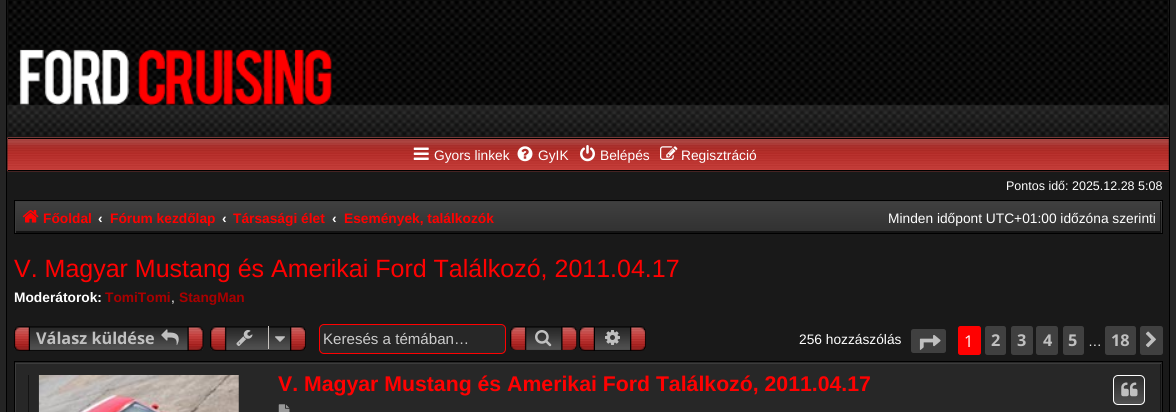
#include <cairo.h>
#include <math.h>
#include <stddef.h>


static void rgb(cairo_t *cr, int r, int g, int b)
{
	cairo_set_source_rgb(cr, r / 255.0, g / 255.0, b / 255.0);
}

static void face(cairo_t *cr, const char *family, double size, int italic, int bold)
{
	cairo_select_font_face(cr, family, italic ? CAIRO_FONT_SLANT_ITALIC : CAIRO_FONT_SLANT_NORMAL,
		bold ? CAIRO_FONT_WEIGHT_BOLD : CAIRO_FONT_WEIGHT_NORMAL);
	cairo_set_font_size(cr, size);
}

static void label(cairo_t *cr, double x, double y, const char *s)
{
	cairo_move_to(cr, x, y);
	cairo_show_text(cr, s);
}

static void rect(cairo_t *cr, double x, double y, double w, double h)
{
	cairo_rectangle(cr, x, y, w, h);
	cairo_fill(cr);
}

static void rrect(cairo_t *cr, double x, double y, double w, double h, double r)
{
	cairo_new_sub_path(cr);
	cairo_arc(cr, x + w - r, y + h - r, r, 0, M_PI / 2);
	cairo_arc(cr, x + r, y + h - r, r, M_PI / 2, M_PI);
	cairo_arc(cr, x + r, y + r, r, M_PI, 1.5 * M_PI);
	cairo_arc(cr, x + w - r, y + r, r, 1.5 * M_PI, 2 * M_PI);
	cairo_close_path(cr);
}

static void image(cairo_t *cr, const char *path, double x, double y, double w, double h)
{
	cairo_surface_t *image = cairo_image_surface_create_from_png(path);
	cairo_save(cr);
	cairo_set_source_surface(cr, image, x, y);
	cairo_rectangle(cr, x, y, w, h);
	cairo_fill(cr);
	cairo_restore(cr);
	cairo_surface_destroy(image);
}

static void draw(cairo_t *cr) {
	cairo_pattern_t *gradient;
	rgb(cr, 36, 36, 36);
	cairo_paint(cr);
	rgb(cr, 25, 25, 25);
	rect(cr, 7, 0, 1162, 412);
	rgb(cr, 0, 0, 0);
	rect(cr, 1169, 0, 1, 412);
	rect(cr, 6, 0, 1, 412);
	rgb(cr, 45, 45, 45);
	rect(cr, 8, 0, 1161, 138);
	image(cr, "image0.png", 7, 0, 1162, 138);
	image(cr, "image1.png", 19, 49, 313, 57);
	image(cr, "image2.png", 7, 137, 1162, 35);
	rgb(cr, 0, 0, 0);
	rect(cr, 8, 138, 1161, 1);
	rect(cr, 8, 170, 1161, 1);
	image(cr, "image3.png", 413, 147, 16, 13);
	face(cr, "Liberation Sans", 13.75, 0, 0);
	rgb(cr, 255, 255, 255);
	label(cr, 434, 160, "Gyors linkek");
	image(cr, "image4.png", 517, 146, 16, 16);
	label(cr, 538, 160, "GyIK");
	image(cr, "image5.png", 580, 145, 15, 17);
	label(cr, 600, 160, "Belépés");
	image(cr, "image6.png", 660, 146, 18, 14);
	label(cr, 681, 160, "Regisztráció");
	face(cr, "Liberation Sans", 12.5, 0, 0);
	label(cr, 1006, 190, "Pontos idő: 2025.12.28 5:08");
	gradient = cairo_pattern_create_linear(588, 201, 588, 233);
	cairo_pattern_add_color_stop_rgba(gradient, 0, 0.251, 0.251, 0.251, 1);
	cairo_pattern_add_color_stop_rgba(gradient, 1, 0.192, 0.192, 0.192, 1);
	cairo_set_source(cr, gradient);
	cairo_pattern_destroy(gradient);
	rect(cr, 16, 201, 1146, 32);
	cairo_save(cr);
	cairo_rectangle(cr, 15, 201, 1146, 32);
	cairo_clip(cr);
	rgb(cr, 19, 19, 19);
	cairo_set_fill_rule(cr, CAIRO_FILL_RULE_EVEN_ODD);
	cairo_new_path(cr);
	cairo_move_to(cr, -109, 78);
	cairo_line_to(cr, 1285, 78);
	cairo_line_to(cr, 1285, 356);
	cairo_line_to(cr, -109, 356);
	cairo_close_path(cr);
	cairo_move_to(cr, 14, 200);
	cairo_line_to(cr, 1160, 200);
	cairo_line_to(cr, 1160, 231);
	cairo_line_to(cr, 14, 231);
	cairo_close_path(cr);
	cairo_fill(cr);
	rgb(cr, 60, 60, 60);
	cairo_new_path(cr);
	cairo_move_to(cr, -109, 78);
	cairo_line_to(cr, 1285, 78);
	cairo_line_to(cr, 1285, 356);
	cairo_line_to(cr, -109, 356);
	cairo_close_path(cr);
	cairo_move_to(cr, 16, 202);
	cairo_line_to(cr, 1162, 202);
	cairo_line_to(cr, 1162, 234);
	cairo_line_to(cr, 16, 234);
	cairo_close_path(cr);
	cairo_fill(cr);
	cairo_restore(cr);
	cairo_rectangle(cr, 14.5, 200.5, 1148, 33);
	rgb(cr, 0, 0, 0);
	cairo_set_line_width(cr, 1);
	cairo_stroke(cr);
	image(cr, "image7.png", 22, 210, 17, 13);
	face(cr, "Liberation Sans", 13.75, 0, 1);
	rgb(cr, 255, 1, 1);
	label(cr, 43, 223, "Főoldal");
	rgb(cr, 255, 255, 255);
	label(cr, 98, 223, "‹");
	rgb(cr, 255, 1, 1);
	label(cr, 110, 223, "Fórum kezdőlap");
	rgb(cr, 255, 255, 255);
	label(cr, 222, 223, "‹");
	rgb(cr, 255, 1, 1);
	label(cr, 233, 223, "Társasági élet");
	rgb(cr, 255, 255, 255);
	label(cr, 332, 223, "‹");
	rgb(cr, 255, 1, 1);
	label(cr, 344, 223, "Események, találkozók");
	face(cr, "Liberation Sans", 13.75, 0, 0);
	rgb(cr, 255, 255, 255);
	label(cr, 888, 223, "Minden időpont UTC+01:00 időzóna szerinti");
	face(cr, "Liberation Sans", 25, 0, 0);
	rgb(cr, 255, 1, 1);
	label(cr, 14, 277, "V. Magyar Mustang és Amerikai Ford Találkozó, 2011.04.17");
	face(cr, "Liberation Sans", 13.75, 0, 1);
	rgb(cr, 255, 255, 255);
	label(cr, 14, 302, "Moderátorok:");
	rgb(cr, 170, 0, 0);
	label(cr, 105, 302, "TomiTomi");
	face(cr, "Liberation Sans", 13.75, 0, 0);
	rgb(cr, 255, 255, 255);
	label(cr, 171, 302, ",");
	face(cr, "Liberation Sans", 13.75, 0, 1);
	rgb(cr, 170, 0, 0);
	label(cr, 179, 302, "StangMan");
	image(cr, "image8.png", 14, 326, 190, 25);
	face(cr, "Open Sans", 16.25, 0, 1);
	rgb(cr, 192, 192, 192);
	label(cr, 36, 344, "Válasz küldése");
	image(cr, "image9.png", 161, 329, 18, 16);
	image(cr, "image10.png", 210, 326, 96, 25);
	image(cr, "image11.png", 236, 330, 17, 16);
	rgb(cr, 199, 195, 191);
	rect(cr, 268, 326, 1, 23);
	image(cr, "image12.png", 275, 336, 10, 6);
	rgb(cr, 39, 39, 39);
	rrect(cr, 319.5, 324.5, 186, 29, 4.5);
	cairo_fill_preserve(cr);
	rgb(cr, 255, 1, 1);
	cairo_stroke(cr);
	face(cr, "Liberation Sans", 15.1, 0, 0);
	rgb(cr, 204, 204, 204);
	label(cr, 323, 344, "Keresés a témában…");
	image(cr, "image13.png", 510, 326, 68, 24);
	image(cr, "image14.png", 535, 330, 17, 17);
	image(cr, "image15.png", 579, 326, 67, 25);
	image(cr, "image16.png", 605, 330, 15, 15);
	face(cr, "Liberation Sans", 13.75, 0, 0);
	rgb(cr, 255, 255, 255);
	label(cr, 799, 344, "256 hozzászólás");
	rgb(cr, 64, 64, 64);
	rrect(cr, 911, 329, 35, 24, 2.5);
	cairo_fill(cr);
	image(cr, "image17.png", 919, 335, 22, 15);
	rgb(cr, 255, 1, 1);
	rrect(cr, 958.5, 326.5, 22, 28, 2);
	cairo_fill_preserve(cr);
	cairo_stroke(cr);
	face(cr, "Open Sans", 16.25, 0, 0);
	rgb(cr, 255, 255, 255);
	label(cr, 964, 347, "1");
	rgb(cr, 64, 64, 64);
	rrect(cr, 985, 326, 21, 29, 2.5);
	cairo_fill(cr);
	face(cr, "Open Sans", 16.25, 0, 1);
	rgb(cr, 192, 192, 192);
	label(cr, 991, 346, "2");
	rgb(cr, 64, 64, 64);
	rrect(cr, 1011, 326, 22, 29, 2.5);
	cairo_fill(cr);
	rgb(cr, 192, 192, 192);
	label(cr, 1017, 346, "3");
	rgb(cr, 64, 64, 64);
	rrect(cr, 1036, 326, 22, 29, 2.5);
	cairo_fill(cr);
	rgb(cr, 192, 192, 192);
	label(cr, 1043, 346, "4");
	rgb(cr, 64, 64, 64);
	rrect(cr, 1063, 326, 21, 29, 2.5);
	cairo_fill(cr);
	rgb(cr, 192, 192, 192);
	label(cr, 1068, 346, "5");
	face(cr, "Liberation Sans", 13.75, 0, 0);
	rgb(cr, 238, 238, 238);
	label(cr, 1088, 346, "…");
	rgb(cr, 64, 64, 64);
	rrect(cr, 1105, 326, 31, 29, 2.5);
	cairo_fill(cr);
	face(cr, "Open Sans", 16.25, 0, 1);
	rgb(cr, 192, 192, 192);
	label(cr, 1111, 346, "18");
	rgb(cr, 64, 64, 64);
	rrect(cr, 1140, 326, 23, 29, 2.5);
	cairo_fill(cr);
	image(cr, "image18.png", 1145, 331, 11, 17);
	rgb(cr, 39, 39, 39);
	rect(cr, 15, 362, 1147, 50);
	cairo_save(cr);
	cairo_rectangle(cr, 15, 363, 1146, 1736);
	cairo_clip(cr);
	rgb(cr, 19, 19, 19);
	cairo_set_fill_rule(cr, CAIRO_FILL_RULE_EVEN_ODD);
	cairo_new_path(cr);
	cairo_move_to(cr, -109, 239);
	cairo_line_to(cr, 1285, 239);
	cairo_line_to(cr, 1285, 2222);
	cairo_line_to(cr, -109, 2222);
	cairo_close_path(cr);
	cairo_move_to(cr, 14, 361);
	cairo_line_to(cr, 1160, 361);
	cairo_line_to(cr, 1160, 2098);
	cairo_line_to(cr, 14, 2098);
	cairo_close_path(cr);
	cairo_fill(cr);
	rgb(cr, 60, 60, 60);
	cairo_new_path(cr);
	cairo_move_to(cr, -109, 239);
	cairo_line_to(cr, 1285, 239);
	cairo_line_to(cr, 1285, 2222);
	cairo_line_to(cr, -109, 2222);
	cairo_close_path(cr);
	cairo_move_to(cr, 16, 364);
	cairo_line_to(cr, 1162, 364);
	cairo_line_to(cr, 1162, 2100);
	cairo_line_to(cr, 16, 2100);
	cairo_close_path(cr);
	cairo_fill(cr);
	cairo_restore(cr);
	cairo_rectangle(cr, 14.5, 361.5, 1148, 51);
	rgb(cr, 0, 0, 0);
	cairo_stroke(cr);
	rgb(cr, 19, 19, 19);
	rect(cr, 28, 375, 1, 37);
	image(cr, "image19.png", 38, 375, 201, 37);
	face(cr, "Liberation Sans", 21.25, 0, 1);
	rgb(cr, 255, 1, 1);
	label(cr, 278, 391, "V. Magyar Mustang és Amerikai Ford Találkozó, 2011.04.17");
	cairo_save(cr);
	rrect(cr, 1113, 375, 32, 30, 5);
	cairo_clip(cr);
	gradient = cairo_pattern_create_linear(1129, 376, 1129, 404);
	cairo_pattern_add_color_stop_rgba(gradient, 0, 0.173, 0.173, 0.173, 1);
	cairo_pattern_add_color_stop_rgba(gradient, 1, 0.318, 0.318, 0.318, 1);
	cairo_set_source(cr, gradient);
	cairo_pattern_destroy(gradient);
	rect(cr, 1113, 376, 32, 28);
	cairo_restore(cr);
	rrect(cr, 1113.5, 375.5, 31, 29, 4.5);
	rgb(cr, 255, 255, 255);
	cairo_stroke(cr);
	image(cr, "image20.png", 1121, 382, 17, 15);
	image(cr, "image21.png", 278, 404, 12, 8);
}

int main(void) {
	cairo_surface_t *surface = cairo_image_surface_create(CAIRO_FORMAT_RGB24, 1176, 412);
	cairo_t *cr = cairo_create(surface);
	cairo_font_options_t *options = cairo_font_options_create();
	cairo_font_options_set_hint_metrics(options, CAIRO_HINT_METRICS_OFF);
	cairo_font_options_set_hint_style(options, CAIRO_HINT_STYLE_NONE);
	cairo_set_font_options(cr, options);
	cairo_set_miter_limit(cr, 4);
	draw(cr);
	cairo_surface_write_to_png(surface, "render.png");
	cairo_font_options_destroy(options);
	cairo_destroy(cr);
	cairo_surface_destroy(surface);
	return 0;
}
